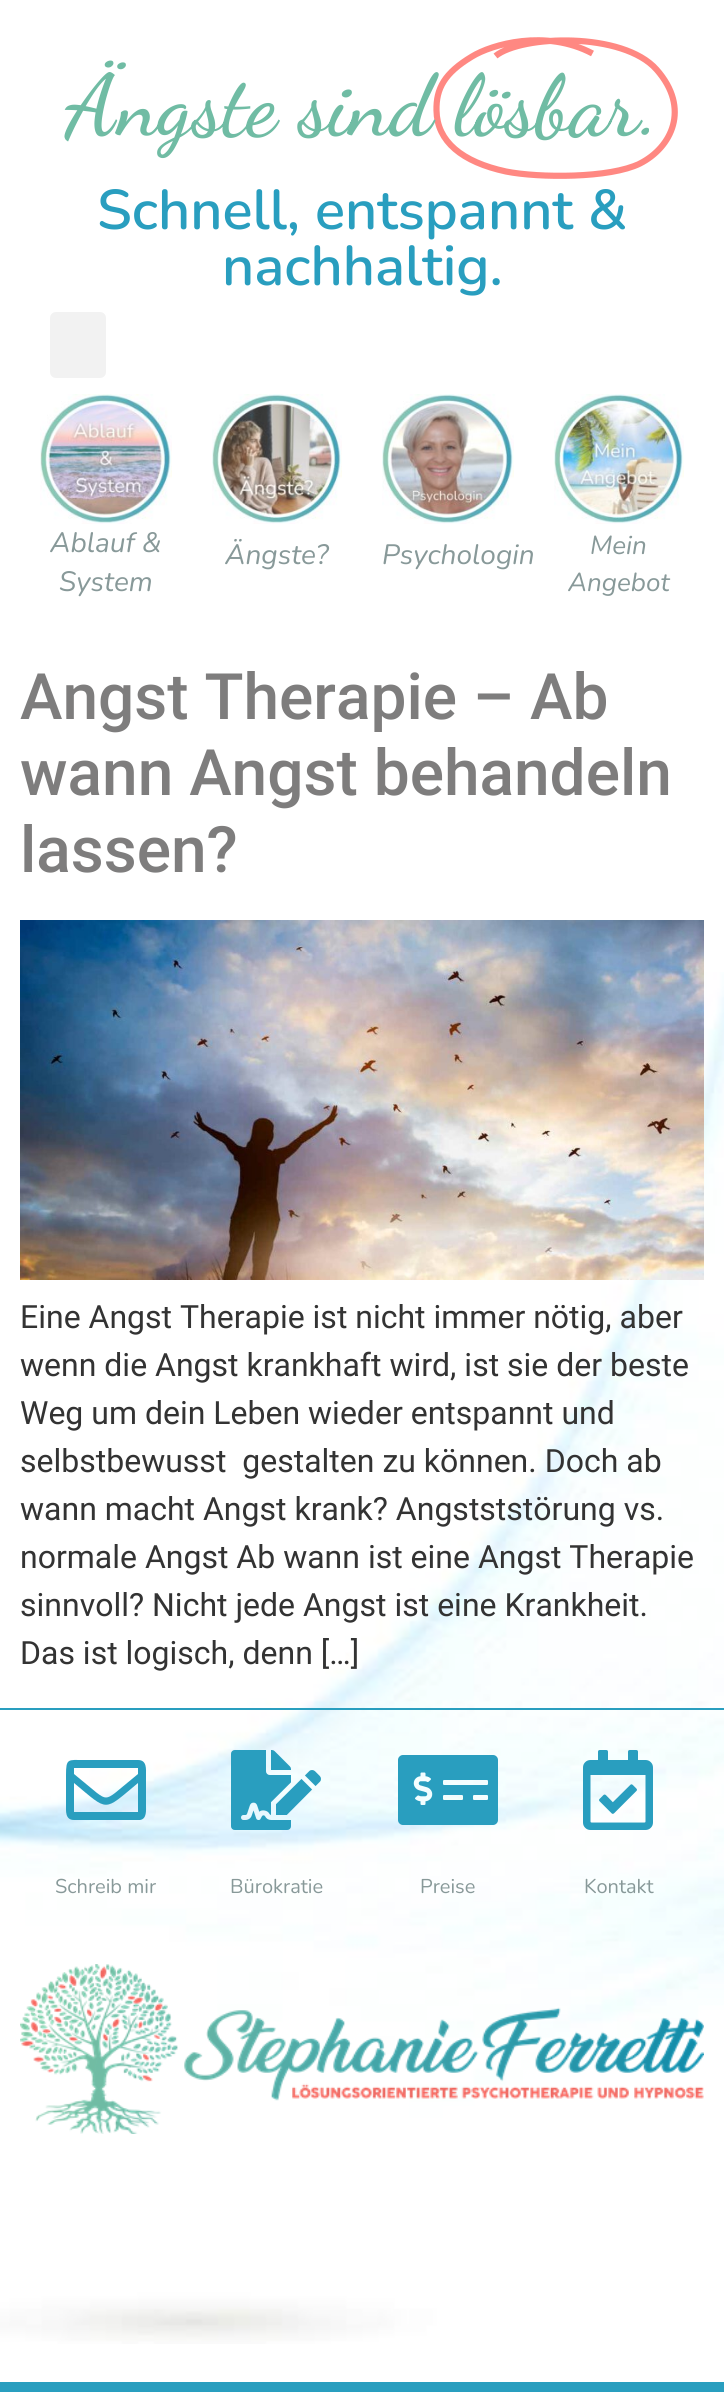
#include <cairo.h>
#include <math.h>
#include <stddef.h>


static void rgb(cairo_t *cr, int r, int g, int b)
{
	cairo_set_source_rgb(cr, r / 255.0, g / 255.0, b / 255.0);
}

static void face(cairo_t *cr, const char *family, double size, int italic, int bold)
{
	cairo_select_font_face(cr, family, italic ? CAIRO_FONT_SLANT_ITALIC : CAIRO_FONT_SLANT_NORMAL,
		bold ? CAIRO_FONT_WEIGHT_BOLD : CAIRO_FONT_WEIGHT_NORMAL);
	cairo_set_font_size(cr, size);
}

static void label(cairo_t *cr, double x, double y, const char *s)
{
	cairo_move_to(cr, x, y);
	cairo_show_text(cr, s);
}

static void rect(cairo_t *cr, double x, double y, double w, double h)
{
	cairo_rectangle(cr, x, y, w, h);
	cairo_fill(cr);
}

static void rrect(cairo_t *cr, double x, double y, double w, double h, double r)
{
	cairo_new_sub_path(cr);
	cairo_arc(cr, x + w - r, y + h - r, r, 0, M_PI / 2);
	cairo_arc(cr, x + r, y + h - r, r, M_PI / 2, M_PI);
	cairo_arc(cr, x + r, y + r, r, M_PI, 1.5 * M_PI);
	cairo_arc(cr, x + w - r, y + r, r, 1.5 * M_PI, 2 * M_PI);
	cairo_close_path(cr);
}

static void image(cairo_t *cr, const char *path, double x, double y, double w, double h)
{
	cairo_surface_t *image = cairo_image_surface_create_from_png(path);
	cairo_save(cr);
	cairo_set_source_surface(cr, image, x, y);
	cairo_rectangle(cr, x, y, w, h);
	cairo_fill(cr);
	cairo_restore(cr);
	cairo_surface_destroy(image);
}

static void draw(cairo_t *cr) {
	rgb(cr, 255, 255, 255);
	cairo_paint(cr);
	image(cr, "image0.png", 0, 972, 724, 1372);
	cairo_new_path(cr);
	cairo_move_to(cr, 592.5, 53.5);
	cairo_curve_to(cr, 545.5, 28.5, 491.5, 44.5, 472, 56.5);
	cairo_curve_to(cr, 444.5, 73, 436, 88.5, 436.5, 110.5);
	cairo_curve_to(cr, 437, 141.5, 462, 162, 506, 171.5);
	cairo_curve_to(cr, 538.5, 178, 610, 178.5, 640, 163.5);
	cairo_curve_to(cr, 671.5, 147.5, 691, 108.5, 656.5, 69.5);
	cairo_curve_to(cr, 623, 31.5, 521.5, 35, 495.5, 56);
	rgb(cr, 255, 136, 130);
	cairo_set_line_width(cr, 6.2);
	cairo_stroke(cr);
	face(cr, "Dancing Script SemiBold", 86, 0, 0);
	rgb(cr, 112, 188, 164);
	label(cr, 65, 134, "Ängste sind lösbar.");
	face(cr, "Nunito SemiBold", 56, 0, 0);
	rgb(cr, 41, 158, 191);
	label(cr, 97, 229, "Schnell, entspannt &");
	label(cr, 222, 285, "nachhaltig.");
	rgb(cr, 242, 242, 242);
	rrect(cr, 50, 312, 56, 66, 6);
	cairo_fill(cr);
	image(cr, "image1.png", 40, 394, 132, 130);
	face(cr, "Nunito", 28, 1, 0);
	rgb(cr, 136, 153, 153);
	label(cr, 50, 552, "Ablauf &");
	label(cr, 59, 591, "System");
	image(cr, "image2.png", 212, 394, 130, 130);
	label(cr, 225, 564, "Ängste?");
	image(cr, "image3.png", 382, 394, 132, 130);
	label(cr, 382, 564, "Psychologin");
	image(cr, "image4.png", 554, 394, 130, 130);
	face(cr, "Nunito", 26, 1, 0);
	label(cr, 590, 554, "Mein");
	label(cr, 568, 591, "Angebot");
	face(cr, "Roboto Medium", 64, 0, 0);
	rgb(cr, 126, 125, 125);
	label(cr, 20, 719, "Angst Therapie – Ab");
	label(cr, 20, 795, "wann Angst behandeln");
	label(cr, 20, 872, "lassen?");
	image(cr, "image5.png", 20, 920, 684, 360);
	face(cr, "Roboto", 32, 0, 0);
	rgb(cr, 51, 51, 51);
	label(cr, 20, 1328, "Eine Angst Therapie ist nicht immer nötig, aber");
	label(cr, 20, 1376, "wenn die Angst krankhaft wird, ist sie der beste");
	label(cr, 20, 1424, "Weg um dein Leben wieder entspannt und");
	label(cr, 20, 1472, "selbstbewusst  gestalten zu können. Doch ab");
	label(cr, 20, 1520, "wann macht Angst krank? Angstststörung vs.");
	label(cr, 20, 1568, "normale Angst Ab wann ist eine Angst Therapie");
	label(cr, 20, 1616, "sinnvoll? Nicht jede Angst ist eine Krankheit.");
	label(cr, 20, 1664, "Das ist logisch, denn […]");
	rgb(cr, 41, 158, 191);
	rect(cr, 0, 1708, 724, 2);
	rect(cr, 0, 2382, 724, 10);
	cairo_new_path(cr);
	cairo_move_to(cr, 138, 1760);
	cairo_curve_to(cr, 147, 1760, 146, 1769, 146, 1775);
	cairo_line_to(cr, 146, 1805);
	cairo_curve_to(cr, 146, 1810, 147, 1819, 140, 1820);
	cairo_line_to(cr, 74, 1820);
	cairo_curve_to(cr, 65, 1820, 66, 1811, 66, 1805);
	cairo_line_to(cr, 66, 1775);
	cairo_curve_to(cr, 66, 1758, 68, 1760, 84, 1760);
	cairo_close_path(cr);
	cairo_move_to(cr, 138, 1768);
	cairo_line_to(cr, 74, 1768);
	cairo_line_to(cr, 74, 1774);
	cairo_line_to(cr, 97, 1793);
	cairo_curve_to(cr, 105, 1799, 107, 1799, 115, 1793);
	cairo_line_to(cr, 138, 1774);
	cairo_close_path(cr);
	cairo_move_to(cr, 74, 1812);
	cairo_line_to(cr, 138, 1812);
	cairo_line_to(cr, 138, 1783);
	cairo_curve_to(cr, 103, 1812, 109, 1812, 74, 1783);
	cairo_close_path(cr);
	cairo_fill(cr);
	face(cr, "Nunito", 20, 0, 0);
	rgb(cr, 136, 153, 153);
	label(cr, 55, 1893, "Schreib mir");
	image(cr, "image6.png", 231, 1750, 90, 80);
	label(cr, 230, 1893, "Bürokratie");
	image(cr, "image7.png", 398, 1755, 100, 70);
	label(cr, 420, 1893, "Preise");
	image(cr, "image8.png", 583, 1750, 70, 80);
	label(cr, 584, 1893, "Kontakt");
	image(cr, "image9.png", 20, 1964, 684, 170);
}

int main(void) {
	cairo_surface_t *surface = cairo_image_surface_create(CAIRO_FORMAT_RGB24, 724, 2392);
	cairo_t *cr = cairo_create(surface);
	cairo_font_options_t *options = cairo_font_options_create();
	cairo_font_options_set_hint_metrics(options, CAIRO_HINT_METRICS_OFF);
	cairo_font_options_set_hint_style(options, CAIRO_HINT_STYLE_NONE);
	cairo_set_font_options(cr, options);
	cairo_set_miter_limit(cr, 4);
	draw(cr);
	cairo_surface_write_to_png(surface, "render.png");
	cairo_font_options_destroy(options);
	cairo_destroy(cr);
	cairo_surface_destroy(surface);
	return 0;
}
